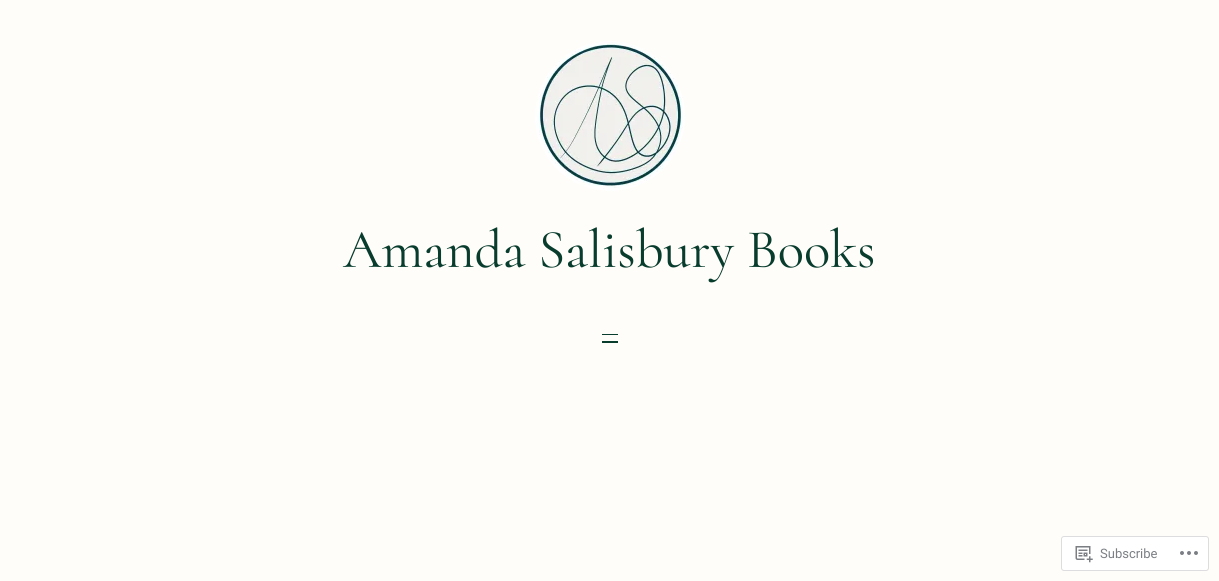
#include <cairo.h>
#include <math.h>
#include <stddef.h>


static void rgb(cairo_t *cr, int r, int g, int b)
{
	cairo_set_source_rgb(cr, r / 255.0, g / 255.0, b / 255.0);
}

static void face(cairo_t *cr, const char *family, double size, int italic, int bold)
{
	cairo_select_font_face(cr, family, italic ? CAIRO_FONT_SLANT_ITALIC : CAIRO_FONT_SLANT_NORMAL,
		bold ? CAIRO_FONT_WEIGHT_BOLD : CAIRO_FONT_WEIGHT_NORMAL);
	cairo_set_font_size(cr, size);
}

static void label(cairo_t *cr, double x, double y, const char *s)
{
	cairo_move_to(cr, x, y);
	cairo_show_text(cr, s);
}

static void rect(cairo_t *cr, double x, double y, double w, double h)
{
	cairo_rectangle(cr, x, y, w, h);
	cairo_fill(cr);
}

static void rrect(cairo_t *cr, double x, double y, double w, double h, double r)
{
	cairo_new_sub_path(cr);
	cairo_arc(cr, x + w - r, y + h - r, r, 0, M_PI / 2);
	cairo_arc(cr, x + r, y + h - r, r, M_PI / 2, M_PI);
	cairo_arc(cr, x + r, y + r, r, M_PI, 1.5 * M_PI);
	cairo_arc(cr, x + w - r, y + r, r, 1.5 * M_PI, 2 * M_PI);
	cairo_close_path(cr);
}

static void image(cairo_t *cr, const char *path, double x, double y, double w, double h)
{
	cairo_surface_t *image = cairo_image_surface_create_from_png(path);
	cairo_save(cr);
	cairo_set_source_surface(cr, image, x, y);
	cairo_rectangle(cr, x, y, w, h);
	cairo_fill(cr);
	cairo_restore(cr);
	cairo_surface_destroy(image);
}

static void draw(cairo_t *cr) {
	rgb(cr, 255, 253, 249);
	cairo_paint(cr);
	image(cr, "image0.png", 535, 41, 150, 150);
	face(cr, "Cormorant", 54.75, 0, 0);
	rgb(cr, 8, 60, 45);
	label(cr, 343, 267, "Amanda Salisbury Books");
	rect(cr, 602, 334, 16, 1);
	rect(cr, 602, 341, 16, 2);
	rgb(cr, 255, 255, 255);
	rrect(cr, 1061.5, 536.5, 147, 34, 2.5);
	cairo_fill_preserve(cr);
	rgb(cr, 221, 221, 223);
	cairo_set_line_width(cr, 1);
	cairo_stroke(cr);
	image(cr, "image1.png", 1075, 546, 18, 17);
	face(cr, "Roboto", 13, 0, 0);
	rgb(cr, 123, 127, 132);
	label(cr, 1100, 558, "Subscribe");
	image(cr, "image2.png", 1180, 551, 18, 4);
}

int main(void) {
	cairo_surface_t *surface = cairo_image_surface_create(CAIRO_FORMAT_RGB24, 1219, 581);
	cairo_t *cr = cairo_create(surface);
	cairo_font_options_t *options = cairo_font_options_create();
	cairo_font_options_set_hint_metrics(options, CAIRO_HINT_METRICS_OFF);
	cairo_font_options_set_hint_style(options, CAIRO_HINT_STYLE_NONE);
	cairo_set_font_options(cr, options);
	cairo_set_miter_limit(cr, 4);
	draw(cr);
	cairo_surface_write_to_png(surface, "render.png");
	cairo_font_options_destroy(options);
	cairo_destroy(cr);
	cairo_surface_destroy(surface);
	return 0;
}
